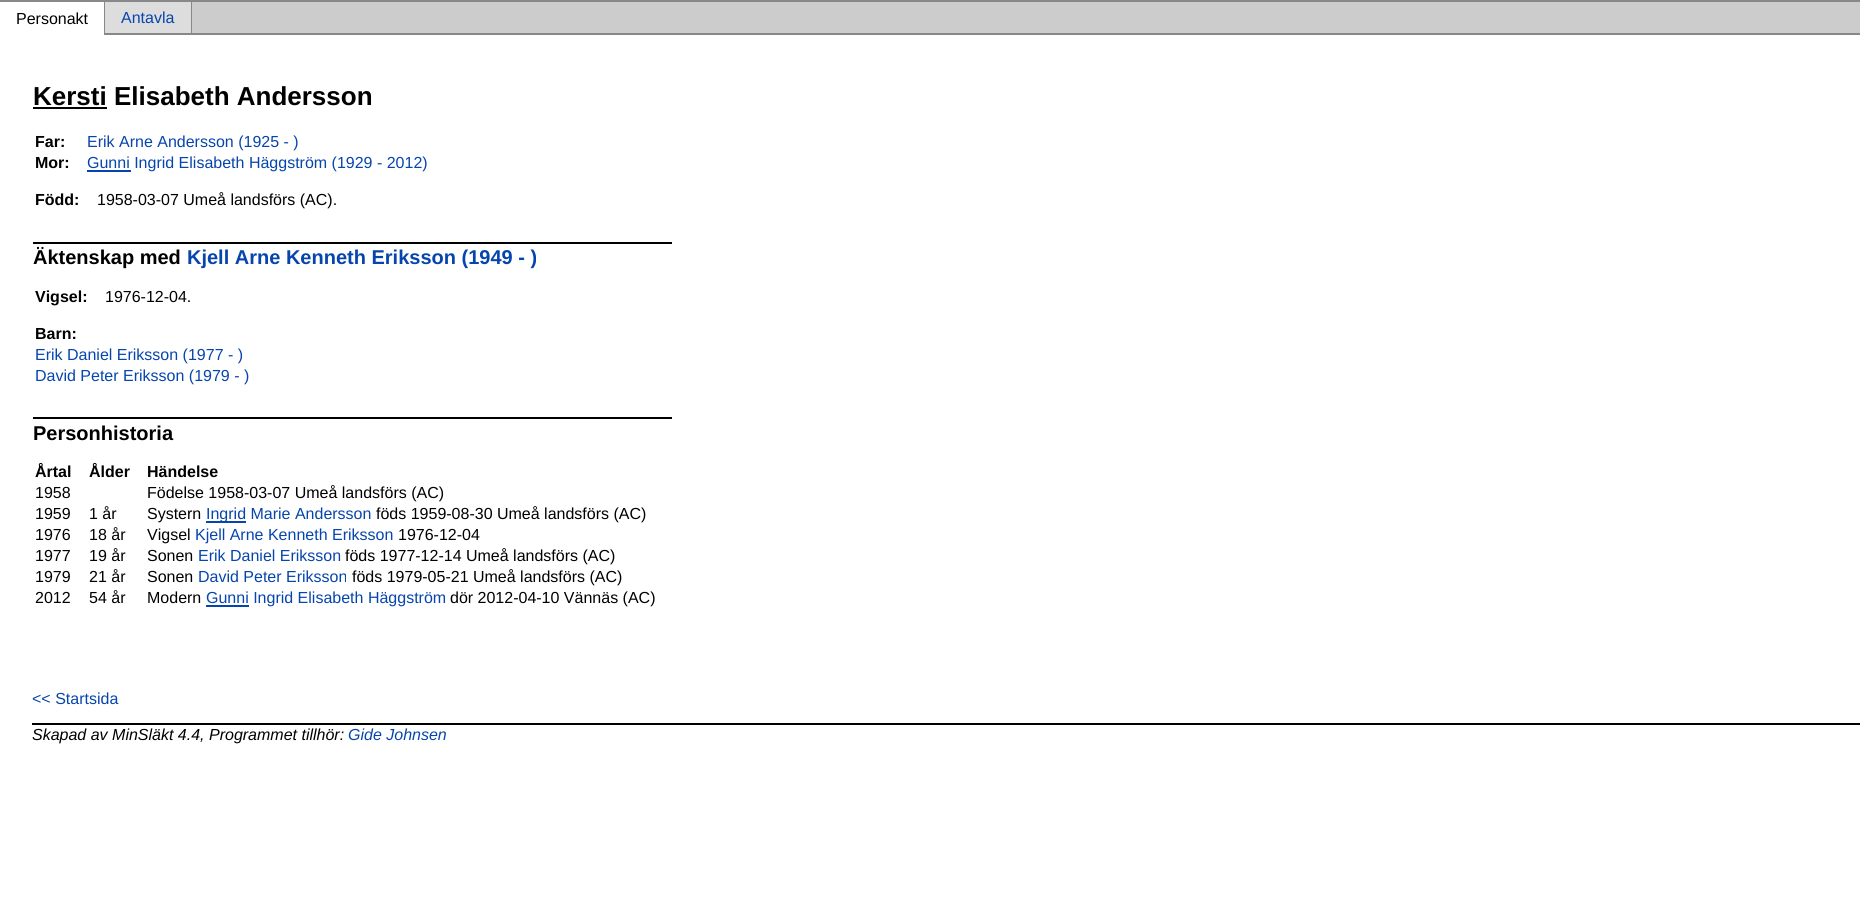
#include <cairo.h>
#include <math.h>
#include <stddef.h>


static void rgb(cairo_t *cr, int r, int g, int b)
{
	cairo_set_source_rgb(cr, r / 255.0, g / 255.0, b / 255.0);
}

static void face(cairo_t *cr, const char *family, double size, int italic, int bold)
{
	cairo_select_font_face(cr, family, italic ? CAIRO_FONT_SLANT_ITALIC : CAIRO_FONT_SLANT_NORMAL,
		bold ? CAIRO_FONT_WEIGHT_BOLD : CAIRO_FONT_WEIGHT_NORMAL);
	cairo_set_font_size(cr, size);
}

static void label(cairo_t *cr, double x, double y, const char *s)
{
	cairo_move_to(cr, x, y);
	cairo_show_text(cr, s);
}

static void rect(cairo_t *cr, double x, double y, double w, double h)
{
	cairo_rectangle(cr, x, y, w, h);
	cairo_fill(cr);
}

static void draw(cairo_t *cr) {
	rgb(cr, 255, 255, 255);
	cairo_paint(cr);
	rgb(cr, 136, 136, 136);
	rect(cr, 0, 0, 1860, 2);
	rect(cr, 104, 0, 1, 35);
	face(cr, "Liberation Sans", 16, 0, 0);
	rgb(cr, 0, 0, 0);
	label(cr, 16, 24, "Personakt");
	rgb(cr, 221, 221, 221);
	rect(cr, 105, 2, 86, 31);
	rgb(cr, 136, 136, 136);
	rect(cr, 191, 0, 1, 35);
	rect(cr, 105, 33, 1755, 2);
	rgb(cr, 6, 69, 173);
	label(cr, 121, 23, "Antavla");
	rgb(cr, 204, 204, 204);
	rect(cr, 192, 2, 1668, 31);
	face(cr, "Liberation Sans", 26, 0, 1);
	rgb(cr, 0, 0, 0);
	label(cr, 33, 105, "Kersti Elisabeth Andersson");
	rect(cr, 33, 107, 74, 2);
	face(cr, "Liberation Sans", 16, 0, 1);
	label(cr, 35, 147, "Far:");
	face(cr, "Liberation Sans", 16, 0, 0);
	rgb(cr, 6, 69, 173);
	label(cr, 87, 147, "Erik Arne Andersson (1925 - )");
	face(cr, "Liberation Sans", 16, 0, 1);
	rgb(cr, 0, 0, 0);
	label(cr, 35, 168, "Mor:");
	rgb(cr, 6, 69, 173);
	rect(cr, 87, 170, 44, 2);
	face(cr, "Liberation Sans", 16, 0, 0);
	label(cr, 87, 168, "Gunni Ingrid Elisabeth Häggström (1929 - 2012)");
	face(cr, "Liberation Sans", 16, 0, 1);
	rgb(cr, 0, 0, 0);
	label(cr, 35, 205, "Född:");
	face(cr, "Liberation Sans", 16, 0, 0);
	label(cr, 97, 205, "1958-03-07 Umeå landsförs (AC).");
	rect(cr, 33, 242, 639, 2);
	face(cr, "Liberation Sans", 20, 0, 1);
	label(cr, 33, 264, "Äktenskap med");
	rgb(cr, 6, 69, 173);
	label(cr, 187, 264, "Kjell Arne Kenneth Eriksson (1949 - )");
	face(cr, "Liberation Sans", 16, 0, 1);
	rgb(cr, 0, 0, 0);
	label(cr, 35, 302, "Vigsel:");
	face(cr, "Liberation Sans", 16, 0, 0);
	label(cr, 105, 302, "1976-12-04.");
	face(cr, "Liberation Sans", 16, 0, 1);
	label(cr, 35, 339, "Barn:");
	face(cr, "Liberation Sans", 16, 0, 0);
	rgb(cr, 6, 69, 173);
	label(cr, 35, 360, "Erik Daniel Eriksson (1977 - )");
	label(cr, 35, 381, "David Peter Eriksson (1979 - )");
	rgb(cr, 0, 0, 0);
	rect(cr, 33, 417, 639, 2);
	face(cr, "Liberation Sans", 20, 0, 1);
	label(cr, 33, 440, "Personhistoria");
	face(cr, "Liberation Sans", 16, 0, 1);
	label(cr, 35, 477, "Årtal");
	label(cr, 89, 477, "Ålder");
	label(cr, 147, 477, "Händelse");
	face(cr, "Liberation Sans", 16, 0, 0);
	label(cr, 35, 498, "1958");
	label(cr, 147, 498, "Födelse 1958-03-07 Umeå landsförs (AC)");
	label(cr, 35, 519, "1959");
	label(cr, 89, 519, "1 år");
	label(cr, 147, 519, "Systern");
	rgb(cr, 6, 69, 173);
	rect(cr, 206, 521, 40, 2);
	label(cr, 206, 519, "Ingrid Marie Andersson");
	rgb(cr, 0, 0, 0);
	label(cr, 376, 519, "föds 1959-08-30 Umeå landsförs (AC)");
	label(cr, 35, 540, "1976");
	label(cr, 89, 540, "18 år");
	label(cr, 147, 540, "Vigsel");
	rgb(cr, 6, 69, 173);
	label(cr, 195, 540, "Kjell Arne Kenneth Eriksson");
	rgb(cr, 0, 0, 0);
	label(cr, 398, 540, "1976-12-04");
	label(cr, 35, 561, "1977");
	label(cr, 89, 561, "19 år");
	label(cr, 147, 561, "Sonen");
	rgb(cr, 6, 69, 173);
	label(cr, 198, 561, "Erik Daniel Eriksson");
	rgb(cr, 0, 0, 0);
	label(cr, 345, 561, "föds 1977-12-14 Umeå landsförs (AC)");
	label(cr, 35, 582, "1979");
	label(cr, 89, 582, "21 år");
	label(cr, 147, 582, "Sonen");
	rgb(cr, 6, 69, 173);
	label(cr, 198, 582, "David Peter Eriksson");
	rgb(cr, 0, 0, 0);
	label(cr, 352, 582, "föds 1979-05-21 Umeå landsförs (AC)");
	label(cr, 35, 603, "2012");
	label(cr, 89, 603, "54 år");
	label(cr, 147, 603, "Modern");
	rgb(cr, 6, 69, 173);
	rect(cr, 206, 605, 43, 2);
	label(cr, 206, 603, "Gunni Ingrid Elisabeth Häggström");
	rgb(cr, 0, 0, 0);
	label(cr, 450, 603, "dör 2012-04-10 Vännäs (AC)");
	rgb(cr, 6, 69, 173);
	label(cr, 32, 704, "<< Startsida");
	rgb(cr, 0, 0, 0);
	rect(cr, 32, 723, 1828, 2);
	face(cr, "Liberation Sans", 16, 1, 0);
	label(cr, 32, 740, "Skapad av MinSläkt 4.4, Programmet tillhör:");
	rgb(cr, 6, 69, 173);
	label(cr, 348, 740, "Gide Johnsen");
}

int main(void) {
	cairo_surface_t *surface = cairo_image_surface_create(CAIRO_FORMAT_RGB24, 1860, 918);
	cairo_t *cr = cairo_create(surface);
	cairo_font_options_t *options = cairo_font_options_create();
	cairo_font_options_set_hint_metrics(options, CAIRO_HINT_METRICS_OFF);
	cairo_font_options_set_hint_style(options, CAIRO_HINT_STYLE_NONE);
	cairo_set_font_options(cr, options);
	cairo_set_miter_limit(cr, 4);
	draw(cr);
	cairo_surface_write_to_png(surface, "render.png");
	cairo_font_options_destroy(options);
	cairo_destroy(cr);
	cairo_surface_destroy(surface);
	return 0;
}
